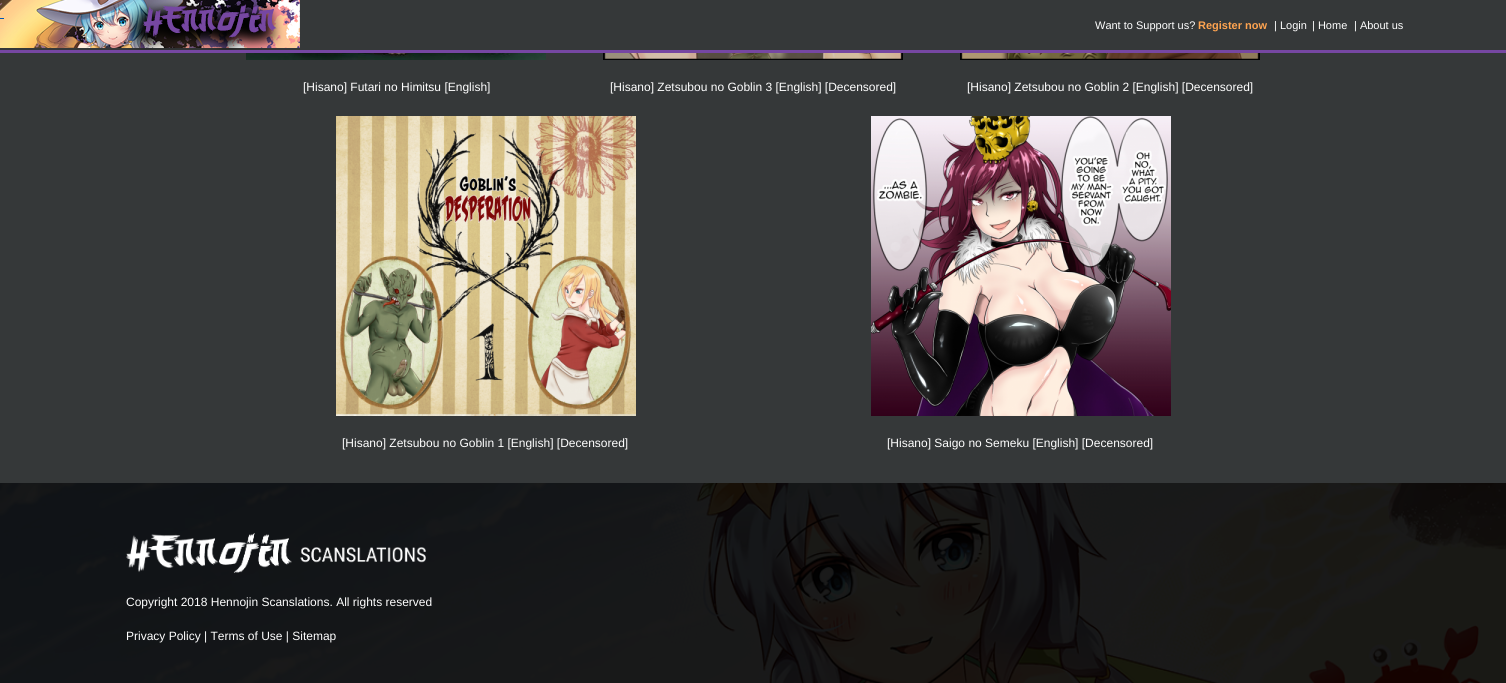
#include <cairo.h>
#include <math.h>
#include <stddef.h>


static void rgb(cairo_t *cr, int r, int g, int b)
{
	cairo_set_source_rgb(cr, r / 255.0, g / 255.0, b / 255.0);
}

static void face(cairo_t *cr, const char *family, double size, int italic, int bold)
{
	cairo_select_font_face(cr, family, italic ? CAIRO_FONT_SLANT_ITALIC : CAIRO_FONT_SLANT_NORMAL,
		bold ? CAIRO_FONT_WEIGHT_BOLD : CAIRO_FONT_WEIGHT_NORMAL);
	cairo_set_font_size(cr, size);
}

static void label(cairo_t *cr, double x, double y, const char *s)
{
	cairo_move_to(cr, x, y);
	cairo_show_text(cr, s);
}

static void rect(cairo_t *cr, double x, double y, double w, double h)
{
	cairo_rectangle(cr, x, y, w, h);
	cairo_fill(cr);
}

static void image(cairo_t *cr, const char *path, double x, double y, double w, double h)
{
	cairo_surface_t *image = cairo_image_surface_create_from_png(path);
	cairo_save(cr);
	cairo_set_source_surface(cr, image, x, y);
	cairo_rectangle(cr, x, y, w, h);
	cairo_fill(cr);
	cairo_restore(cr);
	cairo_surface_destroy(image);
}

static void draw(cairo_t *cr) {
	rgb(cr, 53, 56, 57);
	cairo_paint(cr);
	rgb(cr, 118, 71, 162);
	rect(cr, 0, 50, 1506, 3);
	image(cr, "image0.png", 0, 0, 300, 50);
	rgb(cr, 0, 86, 179);
	rect(cr, 0, 18, 4, 1);
	face(cr, "Liberation Sans", 11, 0, 0);
	rgb(cr, 255, 255, 255);
	label(cr, 1095, 29, "Want to Support us?");
	face(cr, "Liberation Sans", 11, 0, 1);
	rgb(cr, 255, 164, 80);
	label(cr, 1198, 29, "Register now");
	face(cr, "Liberation Sans", 11, 0, 0);
	rgb(cr, 255, 255, 255);
	label(cr, 1274, 29, "| Login");
	label(cr, 1312, 29, "| Home");
	label(cr, 1354, 29, "| About us");
	image(cr, "image1.png", 246, 53, 300, 7);
	face(cr, "Liberation Sans", 12, 0, 0);
	label(cr, 303, 91, "[Hisano] Futari no Himitsu [English]");
	image(cr, "image2.png", 603, 53, 300, 7);
	label(cr, 610, 91, "[Hisano] Zetsubou no Goblin 3 [English] [Decensored]");
	image(cr, "image3.png", 960, 53, 300, 7);
	label(cr, 967, 91, "[Hisano] Zetsubou no Goblin 2 [English] [Decensored]");
	image(cr, "image4.png", 336, 116, 300, 300);
	label(cr, 342, 447, "[Hisano] Zetsubou no Goblin 1 [English] [Decensored]");
	image(cr, "image5.png", 871, 116, 300, 300);
	label(cr, 887, 447, "[Hisano] Saigo no Semeku [English] [Decensored]");
	image(cr, "image6.png", 0, 483, 1506, 200);
	image(cr, "image7.png", 126, 533, 300, 40);
	label(cr, 126, 606, "Copyright 2018 Hennojin Scanslations. All rights reserved");
	label(cr, 126, 640, "Privacy Policy | Terms of Use | Sitemap");
}

int main(void) {
	cairo_surface_t *surface = cairo_image_surface_create(CAIRO_FORMAT_RGB24, 1506, 683);
	cairo_t *cr = cairo_create(surface);
	cairo_font_options_t *options = cairo_font_options_create();
	cairo_font_options_set_hint_metrics(options, CAIRO_HINT_METRICS_OFF);
	cairo_font_options_set_hint_style(options, CAIRO_HINT_STYLE_NONE);
	cairo_set_font_options(cr, options);
	cairo_set_miter_limit(cr, 4);
	draw(cr);
	cairo_surface_write_to_png(surface, "render.png");
	cairo_font_options_destroy(options);
	cairo_destroy(cr);
	cairo_surface_destroy(surface);
	return 0;
}
